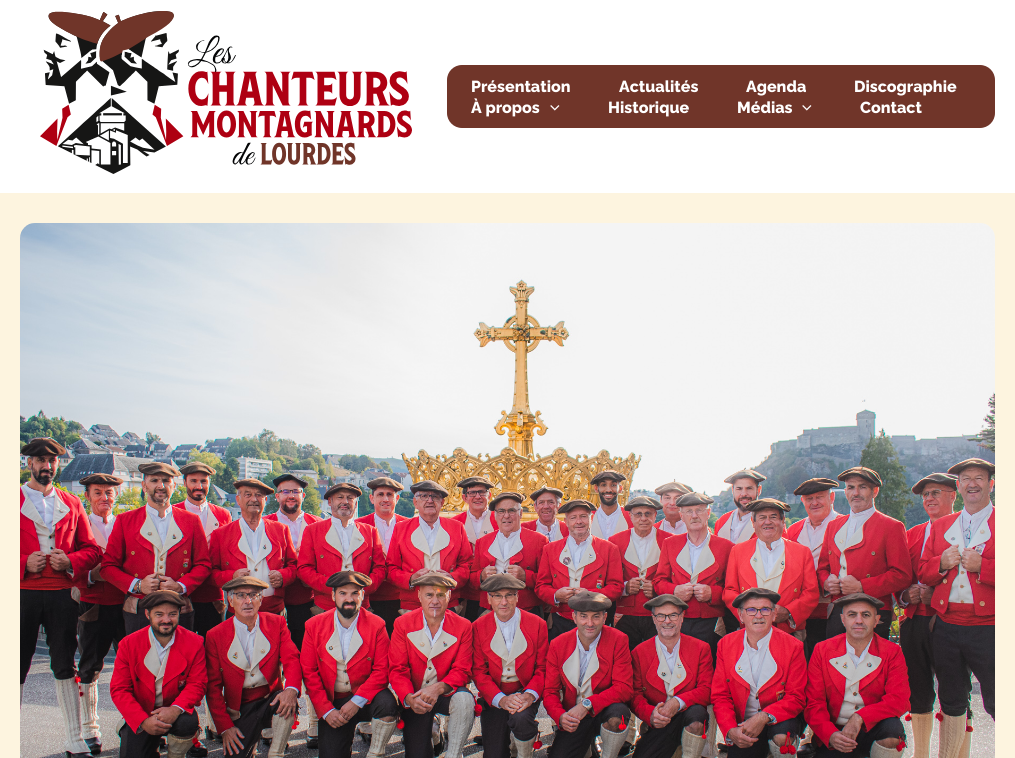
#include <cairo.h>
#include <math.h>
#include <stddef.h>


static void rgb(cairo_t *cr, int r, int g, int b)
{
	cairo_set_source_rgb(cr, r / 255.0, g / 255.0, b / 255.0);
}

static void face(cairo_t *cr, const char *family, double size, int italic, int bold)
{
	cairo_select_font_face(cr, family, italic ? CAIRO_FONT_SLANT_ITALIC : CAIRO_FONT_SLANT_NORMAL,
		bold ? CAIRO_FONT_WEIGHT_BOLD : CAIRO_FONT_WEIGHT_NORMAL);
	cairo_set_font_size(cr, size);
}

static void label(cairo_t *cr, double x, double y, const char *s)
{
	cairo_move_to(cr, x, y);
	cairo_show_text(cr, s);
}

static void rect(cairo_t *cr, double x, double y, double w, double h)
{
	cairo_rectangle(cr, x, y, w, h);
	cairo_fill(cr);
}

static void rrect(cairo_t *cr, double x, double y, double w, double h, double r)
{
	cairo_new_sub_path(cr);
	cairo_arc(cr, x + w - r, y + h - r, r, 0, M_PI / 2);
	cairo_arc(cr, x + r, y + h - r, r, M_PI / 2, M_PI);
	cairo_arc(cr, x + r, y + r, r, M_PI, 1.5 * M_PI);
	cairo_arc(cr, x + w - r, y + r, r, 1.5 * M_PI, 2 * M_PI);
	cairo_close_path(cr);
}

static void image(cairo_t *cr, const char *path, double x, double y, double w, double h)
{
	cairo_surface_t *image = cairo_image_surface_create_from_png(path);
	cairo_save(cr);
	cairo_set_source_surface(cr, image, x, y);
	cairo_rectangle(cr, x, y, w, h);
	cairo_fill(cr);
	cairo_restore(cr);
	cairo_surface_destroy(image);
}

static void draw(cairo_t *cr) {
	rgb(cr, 253, 244, 223);
	cairo_paint(cr);
	rgb(cr, 255, 255, 255);
	rect(cr, 0, 0, 1015, 193);
	image(cr, "image0.png", 40, 11, 372, 163);
	rgb(cr, 112, 53, 41);
	rrect(cr, 447, 65, 548, 63, 15);
	cairo_fill(cr);
	face(cr, "Raleway ExtraBold", 16, 0, 0);
	rgb(cr, 255, 255, 255);
	label(cr, 471, 92, "Présentation");
	label(cr, 619, 92, "Actualités");
	label(cr, 746, 92, "Agenda");
	label(cr, 854, 92, "Discographie");
	label(cr, 471, 113, "À propos");
	image(cr, "image1.png", 550, 105, 10, 6);
	label(cr, 608, 113, "Historique");
	label(cr, 737, 113, "Médias");
	image(cr, "image1.png", 802, 105, 10, 6);
	label(cr, 860, 113, "Contact");
	image(cr, "image2.png", 20, 223, 975, 535);
}

int main(void) {
	cairo_surface_t *surface = cairo_image_surface_create(CAIRO_FORMAT_RGB24, 1015, 758);
	cairo_t *cr = cairo_create(surface);
	cairo_font_options_t *options = cairo_font_options_create();
	cairo_font_options_set_hint_metrics(options, CAIRO_HINT_METRICS_OFF);
	cairo_font_options_set_hint_style(options, CAIRO_HINT_STYLE_NONE);
	cairo_set_font_options(cr, options);
	cairo_set_miter_limit(cr, 4);
	draw(cr);
	cairo_surface_write_to_png(surface, "render.png");
	cairo_font_options_destroy(options);
	cairo_destroy(cr);
	cairo_surface_destroy(surface);
	return 0;
}
